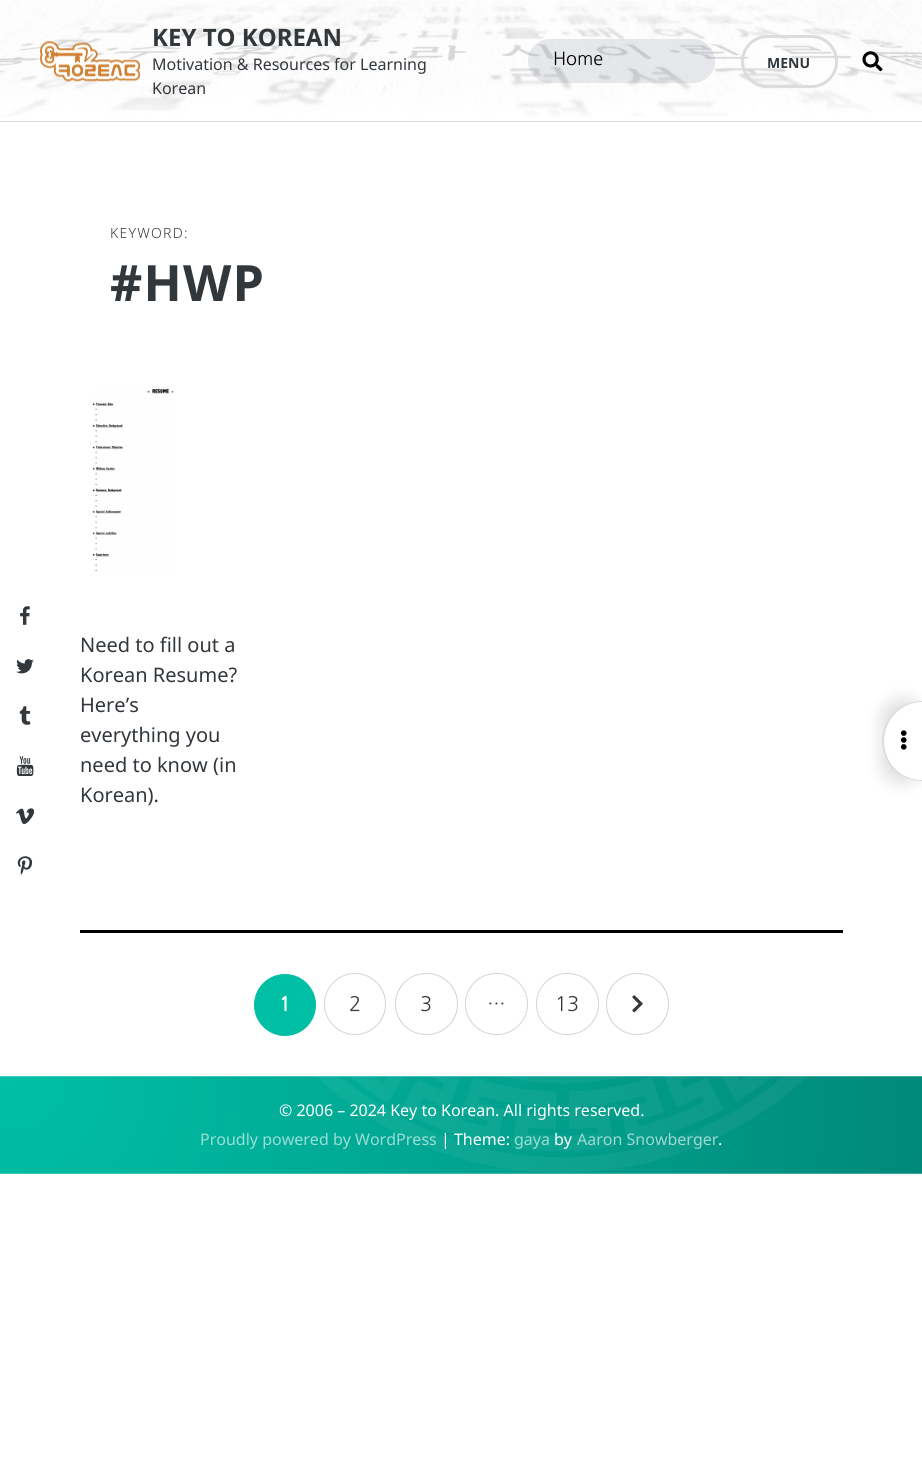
#include <cairo.h>
#include <math.h>
#include <stddef.h>


static void rgb(cairo_t *cr, int r, int g, int b)
{
	cairo_set_source_rgb(cr, r / 255.0, g / 255.0, b / 255.0);
}

static void face(cairo_t *cr, const char *family, double size, int italic, int bold)
{
	cairo_select_font_face(cr, family, italic ? CAIRO_FONT_SLANT_ITALIC : CAIRO_FONT_SLANT_NORMAL,
		bold ? CAIRO_FONT_WEIGHT_BOLD : CAIRO_FONT_WEIGHT_NORMAL);
	cairo_set_font_size(cr, size);
}

static void label(cairo_t *cr, double x, double y, const char *s)
{
	cairo_move_to(cr, x, y);
	cairo_show_text(cr, s);
}

static void tracked(cairo_t *cr, double x, double y, const char *s, double letter, double word)
{
	cairo_move_to(cr, x, y);
	while (*s) {
		char ch[5] = {0};
		int n = 0;
		do ch[n++] = *s++; while ((*s & 0xC0) == 0x80);
		cairo_show_text(cr, ch);
		cairo_rel_move_to(cr, letter + word * (*ch == ' '), 0);
	}
}

static void rect(cairo_t *cr, double x, double y, double w, double h)
{
	cairo_rectangle(cr, x, y, w, h);
	cairo_fill(cr);
}

static void rrect(cairo_t *cr, double x, double y, double w, double h, double r)
{
	cairo_new_sub_path(cr);
	cairo_arc(cr, x + w - r, y + h - r, r, 0, M_PI / 2);
	cairo_arc(cr, x + r, y + h - r, r, M_PI / 2, M_PI);
	cairo_arc(cr, x + r, y + r, r, M_PI, 1.5 * M_PI);
	cairo_arc(cr, x + w - r, y + r, r, 1.5 * M_PI, 2 * M_PI);
	cairo_close_path(cr);
}

static void soft_shadow(cairo_t *cr, double x, double y, double w, double h, double r, double blur, double alpha)
{
	cairo_push_group_with_content(cr, CAIRO_CONTENT_ALPHA);
	cairo_set_operator(cr, CAIRO_OPERATOR_SOURCE);
	for (int i = 15; i >= -15 && fmin(w, h) + blur * i / 3 > 0; i -= 2) {
		double e = blur * i / 6;
		cairo_set_source_rgba(cr, 0, 0, 0, alpha * erfc((i - 1) / 8.5) / 2);
		rrect(cr, x - e, y - e, w + 2 * e, h + 2 * e, fmax(0, fmin(r + e + blur * .6, fmin(w, h) / 2 + e)));
		cairo_fill(cr);
	}
	cairo_pattern_t *soft = cairo_pop_group(cr);
	cairo_mask(cr, soft);
	cairo_pattern_destroy(soft);
}

static void image(cairo_t *cr, const char *path, double x, double y, double w, double h)
{
	cairo_surface_t *image = cairo_image_surface_create_from_png(path);
	cairo_save(cr);
	cairo_set_source_surface(cr, image, x, y);
	cairo_rectangle(cr, x, y, w, h);
	cairo_fill(cr);
	cairo_restore(cr);
	cairo_surface_destroy(image);
}

static void draw(cairo_t *cr) {
	rgb(cr, 255, 255, 255);
	cairo_paint(cr);
	image(cr, "image0.png", 20, 606, 10, 19);
	image(cr, "image1.png", 16, 659, 18, 15);
	image(cr, "image2.png", 19, 706, 12, 19);
	image(cr, "image3.png", 16, 756, 18, 20);
	image(cr, "image4.png", 16, 808, 19, 17);
	image(cr, "image5.png", 17, 856, 16, 19);
	image(cr, "image6.png", 0, 0, 922, 117);
	rgb(cr, 220, 220, 220);
	rect(cr, 0, 121, 922, 1);
	cairo_set_source_rgba(cr, 1, 1, 1, 0.4);
	rect(cr, 40, 0, 761, 1);
	image(cr, "image7.png", 40, 41, 100, 41);
	face(cr, "Noto Sans", 24, 0, 1);
	rgb(cr, 50, 55, 60);
	label(cr, 152, 46, "KEY TO KOREAN");
	face(cr, "Noto Sans", 16, 0, 0);
	label(cr, 152, 70, "Motivation & Resources for Learning");
	label(cr, 152, 94, "Korean");
	cairo_set_source_rgba(cr, 0.529, 0.584, 0.631, 0.2);
	rrect(cr, 528, 39, 187, 44, 22);
	cairo_fill(cr);
	face(cr, "NanumGothic", 18, 0, 0);
	rgb(cr, 0, 0, 0);
	label(cr, 553, 65, "Home");
	rrect(cr, 742.5, 36.5, 94, 50, 25);
	rgb(cr, 220, 220, 220);
	cairo_set_line_width(cr, 3);
	cairo_stroke(cr);
	face(cr, "Noto Sans", 14, 0, 1);
	rgb(cr, 50, 55, 60);
	label(cr, 767, 68, "MENU");
	image(cr, "image8.png", 862, 51, 21, 21);
	face(cr, "Noto Sans Light", 14, 0, 0);
	tracked(cr, 110, 238, "KEYWORD:", 1.25, 0);
	face(cr, "Noto Sans", 50, 0, 1);
	tracked(cr, 110, 301, "#HWP", 1.25, 0);
	image(cr, "image9.png", 92, 389, 82, 183);
	face(cr, "Noto Sans", 20, 0, 0);
	label(cr, 80, 652, "Need to fill out a");
	label(cr, 80, 682, "Korean Resume?");
	label(cr, 80, 712, "Here’s");
	label(cr, 80, 742, "everything you");
	label(cr, 80, 772, "need to know (in");
	label(cr, 80, 802, "Korean).");
	rgb(cr, 0, 0, 0);
	rect(cr, 80, 930, 763, 3);
	rgb(cr, 0, 191, 165);
	cairo_new_path(cr);
	cairo_arc(cr, 285, 1005, 30.5, 0, 2 * M_PI);
	cairo_fill_preserve(cr);
	cairo_set_line_width(cr, 1);
	cairo_stroke(cr);
	face(cr, "NanumGothic", 20, 0, 1);
	rgb(cr, 255, 255, 255);
	label(cr, 279, 1011, "1");
	cairo_new_path(cr);
	cairo_arc(cr, 355, 1004, 30.5, 0, 2 * M_PI);
	rgb(cr, 207, 213, 217);
	cairo_stroke(cr);
	face(cr, "NanumGothic", 20, 0, 0);
	rgb(cr, 50, 55, 60);
	label(cr, 349, 1011, "2");
	rrect(cr, 395.5, 973.5, 62, 61, 30.5);
	rgb(cr, 207, 213, 217);
	cairo_stroke(cr);
	rgb(cr, 50, 55, 60);
	label(cr, 420, 1011, "3");
	rrect(cr, 465.5, 973.5, 62, 61, 30.5);
	rgb(cr, 207, 213, 217);
	cairo_stroke(cr);
	rgb(cr, 50, 55, 60);
	label(cr, 487, 1011, "…");
	rrect(cr, 536.5, 973.5, 62, 61, 30.5);
	rgb(cr, 207, 213, 217);
	cairo_stroke(cr);
	rgb(cr, 50, 55, 60);
	label(cr, 555, 1011, "13");
	rrect(cr, 606.5, 973.5, 62, 61, 30.5);
	rgb(cr, 207, 213, 217);
	cairo_stroke(cr);
	image(cr, "image10.png", 632, 995, 11, 18);
	rgb(cr, 0, 0, 0);
	soft_shadow(cr, 883, 701, 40, 80, 40, 9, 0.14);
	rgb(cr, 255, 255, 255);
	cairo_new_path(cr);
	cairo_move_to(cr, 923, 701);
	cairo_line_to(cr, 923, 781);
	cairo_curve_to(cr, 901, 781, 883, 763, 883, 741);
	cairo_curve_to(cr, 883, 719, 901, 701, 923, 701);
	cairo_close_path(cr);
	cairo_fill(cr);
	rgb(cr, 220, 220, 220);
	cairo_set_fill_rule(cr, CAIRO_FILL_RULE_EVEN_ODD);
	cairo_new_path(cr);
	cairo_move_to(cr, 922, 701);
	cairo_line_to(cr, 922, 781);
	cairo_curve_to(cr, 900, 781, 882, 763, 882, 741);
	cairo_curve_to(cr, 882, 719, 900, 701, 922, 701);
	cairo_close_path(cr);
	cairo_move_to(cr, 922, 702);
	cairo_line_to(cr, 922, 780);
	cairo_curve_to(cr, 901, 780, 884, 763, 884, 741);
	cairo_curve_to(cr, 884, 720, 901, 702, 922, 702);
	cairo_close_path(cr);
	cairo_fill(cr);
	image(cr, "image11.png", 901, 730, 6, 20);
	image(cr, "image12.png", 0, 1076, 922, 98);
	face(cr, "Noto Sans", 16, 0, 0);
	rgb(cr, 255, 255, 255);
	label(cr, 279, 1116, "© 2006 – 2024 Key to Korean. All rights reserved.");
	rgb(cr, 154, 222, 213);
	label(cr, 200, 1145, "Proudly powered by WordPress");
	rgb(cr, 255, 255, 255);
	label(cr, 441, 1145, "| Theme:");
	rgb(cr, 154, 222, 213);
	label(cr, 514, 1145, "gaya");
	rgb(cr, 255, 255, 255);
	label(cr, 554, 1145, "by");
	rgb(cr, 157, 216, 209);
	label(cr, 577, 1145, "Aaron Snowberger");
	rgb(cr, 255, 255, 255);
	label(cr, 718, 1145, ".");
}

int main(void) {
	cairo_surface_t *surface = cairo_image_surface_create(CAIRO_FORMAT_RGB24, 922, 1481);
	cairo_t *cr = cairo_create(surface);
	cairo_font_options_t *options = cairo_font_options_create();
	cairo_font_options_set_hint_metrics(options, CAIRO_HINT_METRICS_OFF);
	cairo_font_options_set_hint_style(options, CAIRO_HINT_STYLE_NONE);
	cairo_set_font_options(cr, options);
	cairo_set_miter_limit(cr, 4);
	draw(cr);
	cairo_surface_write_to_png(surface, "render.png");
	cairo_font_options_destroy(options);
	cairo_destroy(cr);
	cairo_surface_destroy(surface);
	return 0;
}
